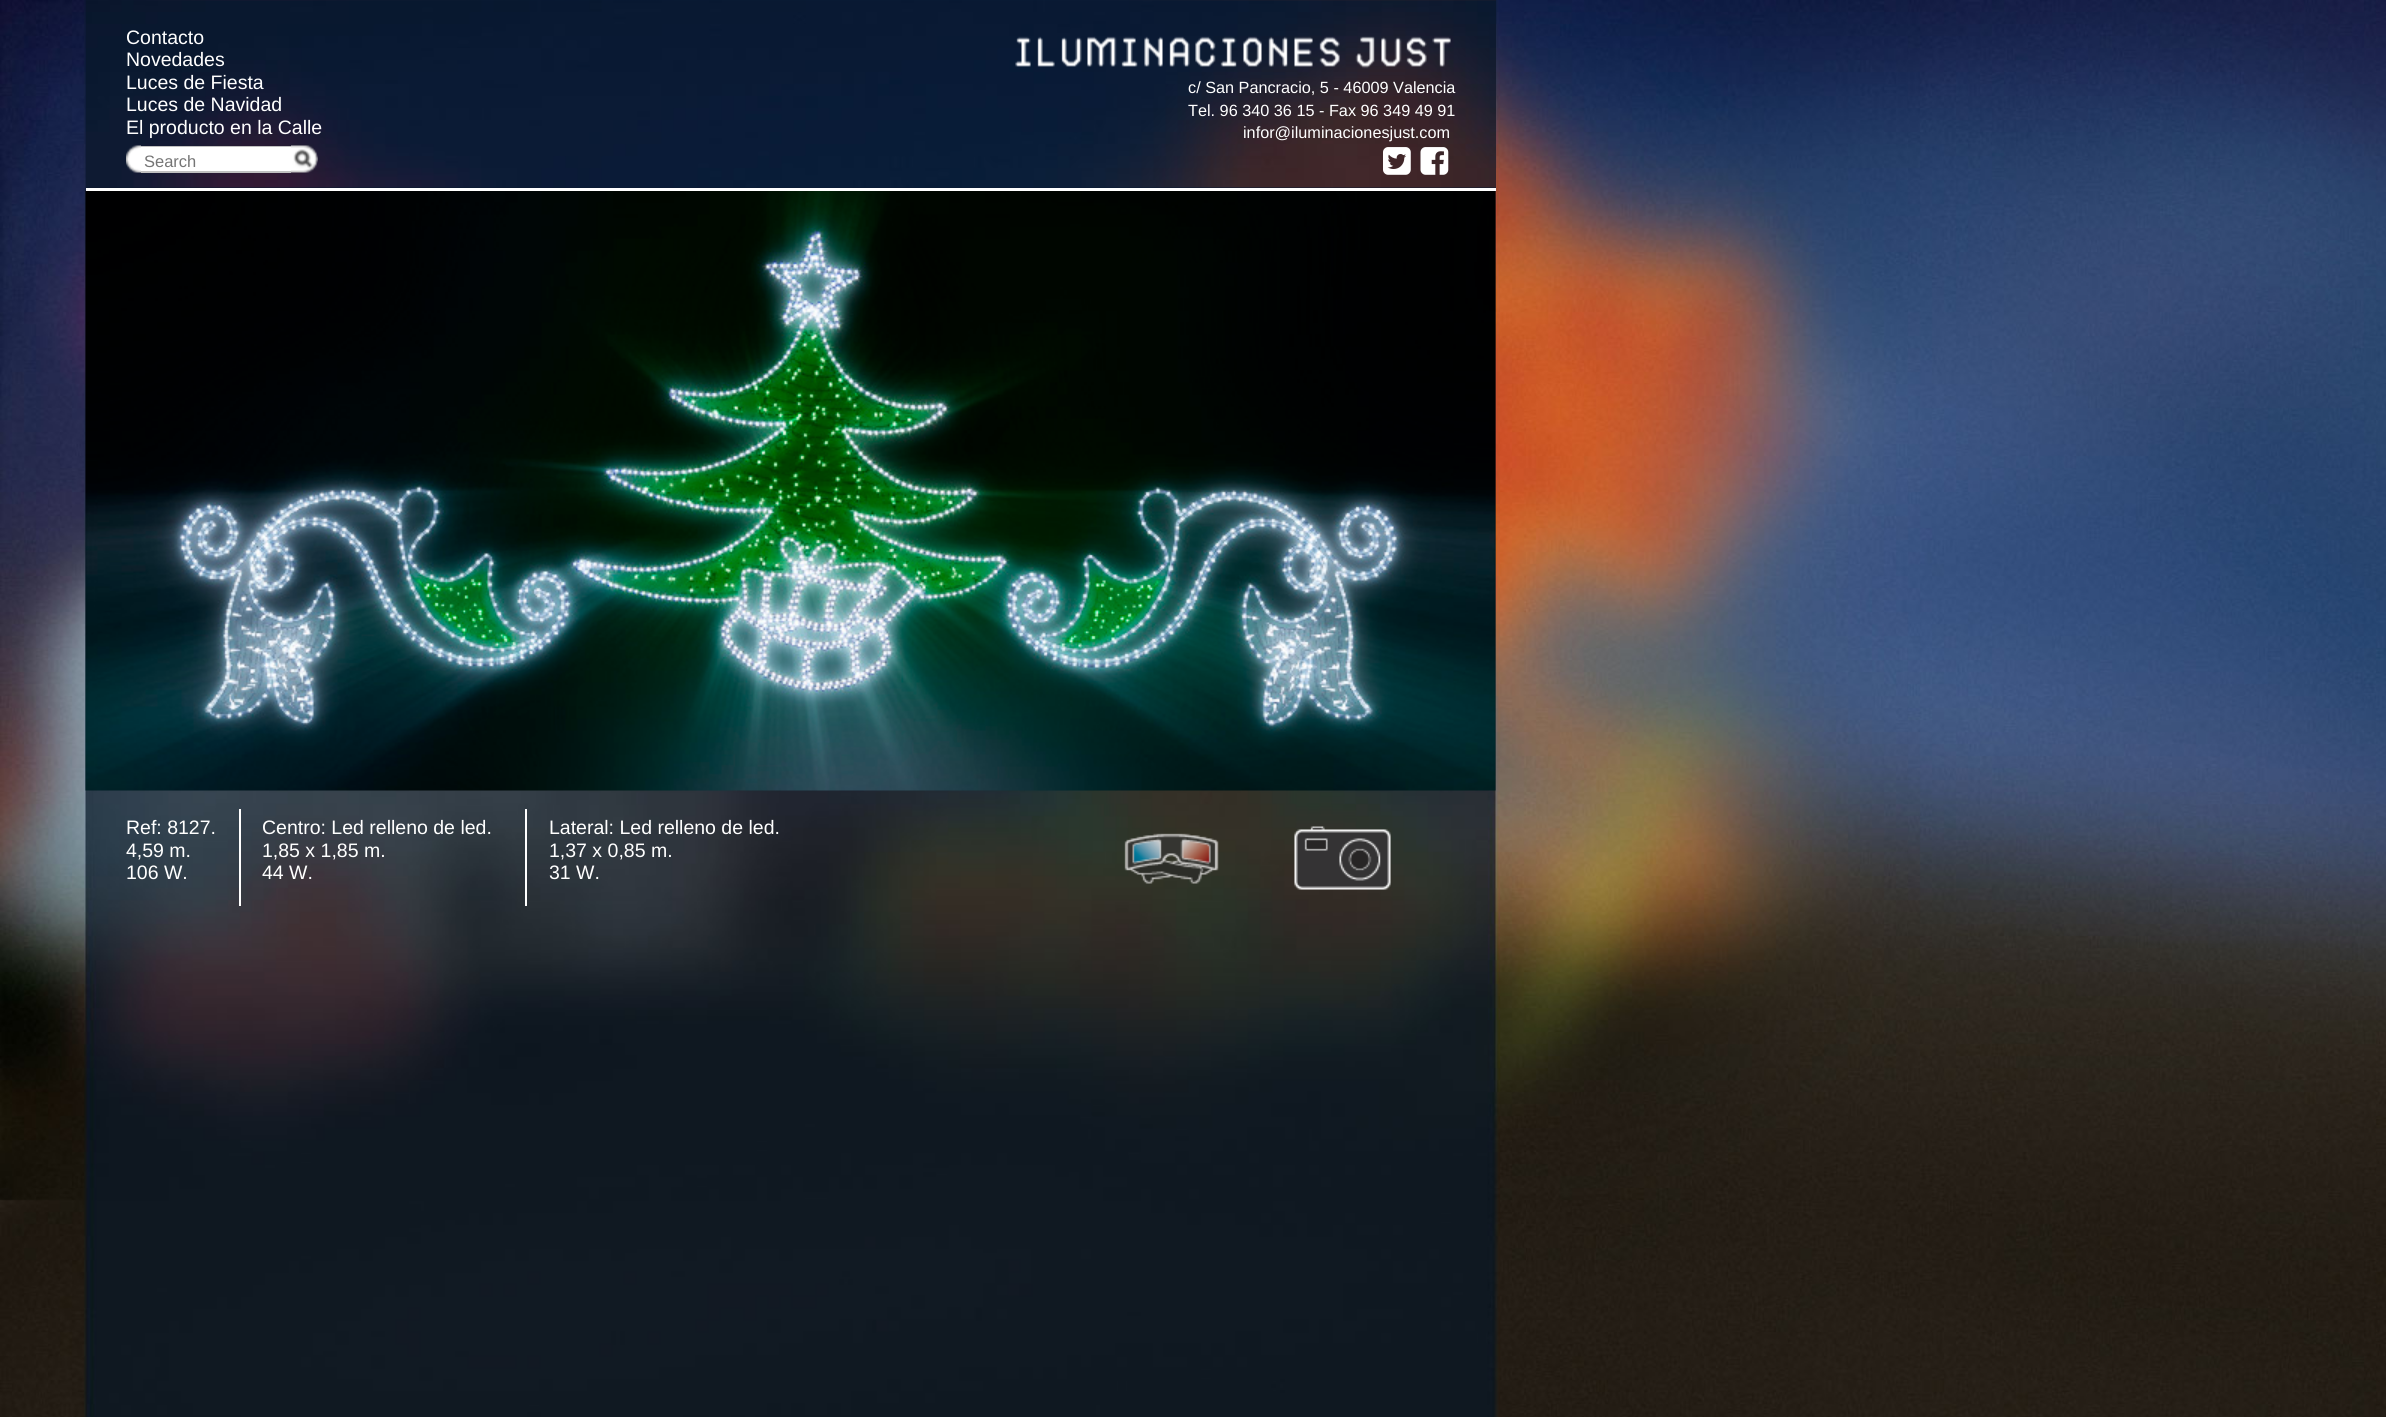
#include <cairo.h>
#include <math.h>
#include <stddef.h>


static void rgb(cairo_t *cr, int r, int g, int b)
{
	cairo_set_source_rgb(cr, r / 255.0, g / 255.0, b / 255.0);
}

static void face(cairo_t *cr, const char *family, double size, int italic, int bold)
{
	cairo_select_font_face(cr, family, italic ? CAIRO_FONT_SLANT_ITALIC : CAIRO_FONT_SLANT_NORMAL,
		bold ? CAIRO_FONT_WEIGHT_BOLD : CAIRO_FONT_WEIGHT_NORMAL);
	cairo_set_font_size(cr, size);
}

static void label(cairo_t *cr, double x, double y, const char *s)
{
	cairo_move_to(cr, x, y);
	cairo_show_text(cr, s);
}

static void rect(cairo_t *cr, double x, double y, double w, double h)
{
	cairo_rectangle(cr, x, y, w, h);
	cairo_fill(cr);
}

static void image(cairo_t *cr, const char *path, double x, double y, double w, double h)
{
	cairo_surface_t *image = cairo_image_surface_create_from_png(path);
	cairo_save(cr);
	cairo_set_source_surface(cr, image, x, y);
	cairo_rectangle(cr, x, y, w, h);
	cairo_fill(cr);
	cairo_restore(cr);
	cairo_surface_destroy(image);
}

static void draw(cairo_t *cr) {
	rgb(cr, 255, 255, 255);
	cairo_paint(cr);
	image(cr, "image0.png", 0, 0, 2386, 1417);
	image(cr, "image1.png", 86, 0, 1410, 188);
	image(cr, "image7.png", 85, 190, 1411, 601);
	rgb(cr, 255, 255, 255);
	rect(cr, 86, 188, 1410, 3);
	face(cr, "Liberation Sans", 19.5, 0, 0);
	label(cr, 126, 44, "Contacto");
	label(cr, 126, 66, "Novedades");
	label(cr, 126, 89, "Luces de Fiesta");
	label(cr, 126, 111, "Luces de Navidad");
	label(cr, 126, 134, "El producto en la Calle");
	image(cr, "image2.png", 126, 145, 15, 28);
	rgb(cr, 192, 192, 192);
	rect(cr, 141, 146, 150, 1);
	rect(cr, 141, 171, 150, 2);
	rgb(cr, 255, 255, 255);
	rect(cr, 141, 147, 150, 24);
	face(cr, "Liberation Sans", 16.5, 0, 0);
	rgb(cr, 117, 117, 117);
	label(cr, 144, 167, "Search");
	image(cr, "image3.png", 291, 145, 27, 28);
	image(cr, "image4.png", 1015, 36, 436, 33);
	face(cr, "Liberation Sans", 16.25, 0, 0);
	rgb(cr, 255, 255, 255);
	label(cr, 1188, 93, "c/ San Pancracio, 5 - 46009 Valencia");
	label(cr, 1188, 116, "Tel. 96 340 36 15 - Fax 96 349 49 91");
	label(cr, 1243, 138, "infor@iluminacionesjust.com");
	image(cr, "image5.png", 1383, 147, 28, 28);
	image(cr, "image6.png", 1420, 147, 29, 28);
	face(cr, "Liberation Sans", 19.5, 0, 0);
	label(cr, 126, 834, "Ref: 8127.");
	label(cr, 126, 857, "4,59 m.");
	label(cr, 126, 879, "106 W.");
	rect(cr, 239, 809, 2, 97);
	label(cr, 262, 834, "Centro: Led relleno de led.");
	label(cr, 262, 857, "1,85 x 1,85 m.");
	label(cr, 262, 879, "44 W.");
	rect(cr, 525, 809, 2, 97);
	label(cr, 549, 834, "Lateral: Led relleno de led.");
	label(cr, 549, 857, "1,37 x 0,85 m.");
	label(cr, 549, 879, "31 W.");
	image(cr, "image8.png", 1294, 826, 97, 64);
	image(cr, "image9.png", 1124, 833, 95, 51);
}

int main(void) {
	cairo_surface_t *surface = cairo_image_surface_create(CAIRO_FORMAT_RGB24, 2386, 1417);
	cairo_t *cr = cairo_create(surface);
	cairo_font_options_t *options = cairo_font_options_create();
	cairo_font_options_set_hint_metrics(options, CAIRO_HINT_METRICS_OFF);
	cairo_font_options_set_hint_style(options, CAIRO_HINT_STYLE_NONE);
	cairo_set_font_options(cr, options);
	cairo_set_miter_limit(cr, 4);
	draw(cr);
	cairo_surface_write_to_png(surface, "render.png");
	cairo_font_options_destroy(options);
	cairo_destroy(cr);
	cairo_surface_destroy(surface);
	return 0;
}
